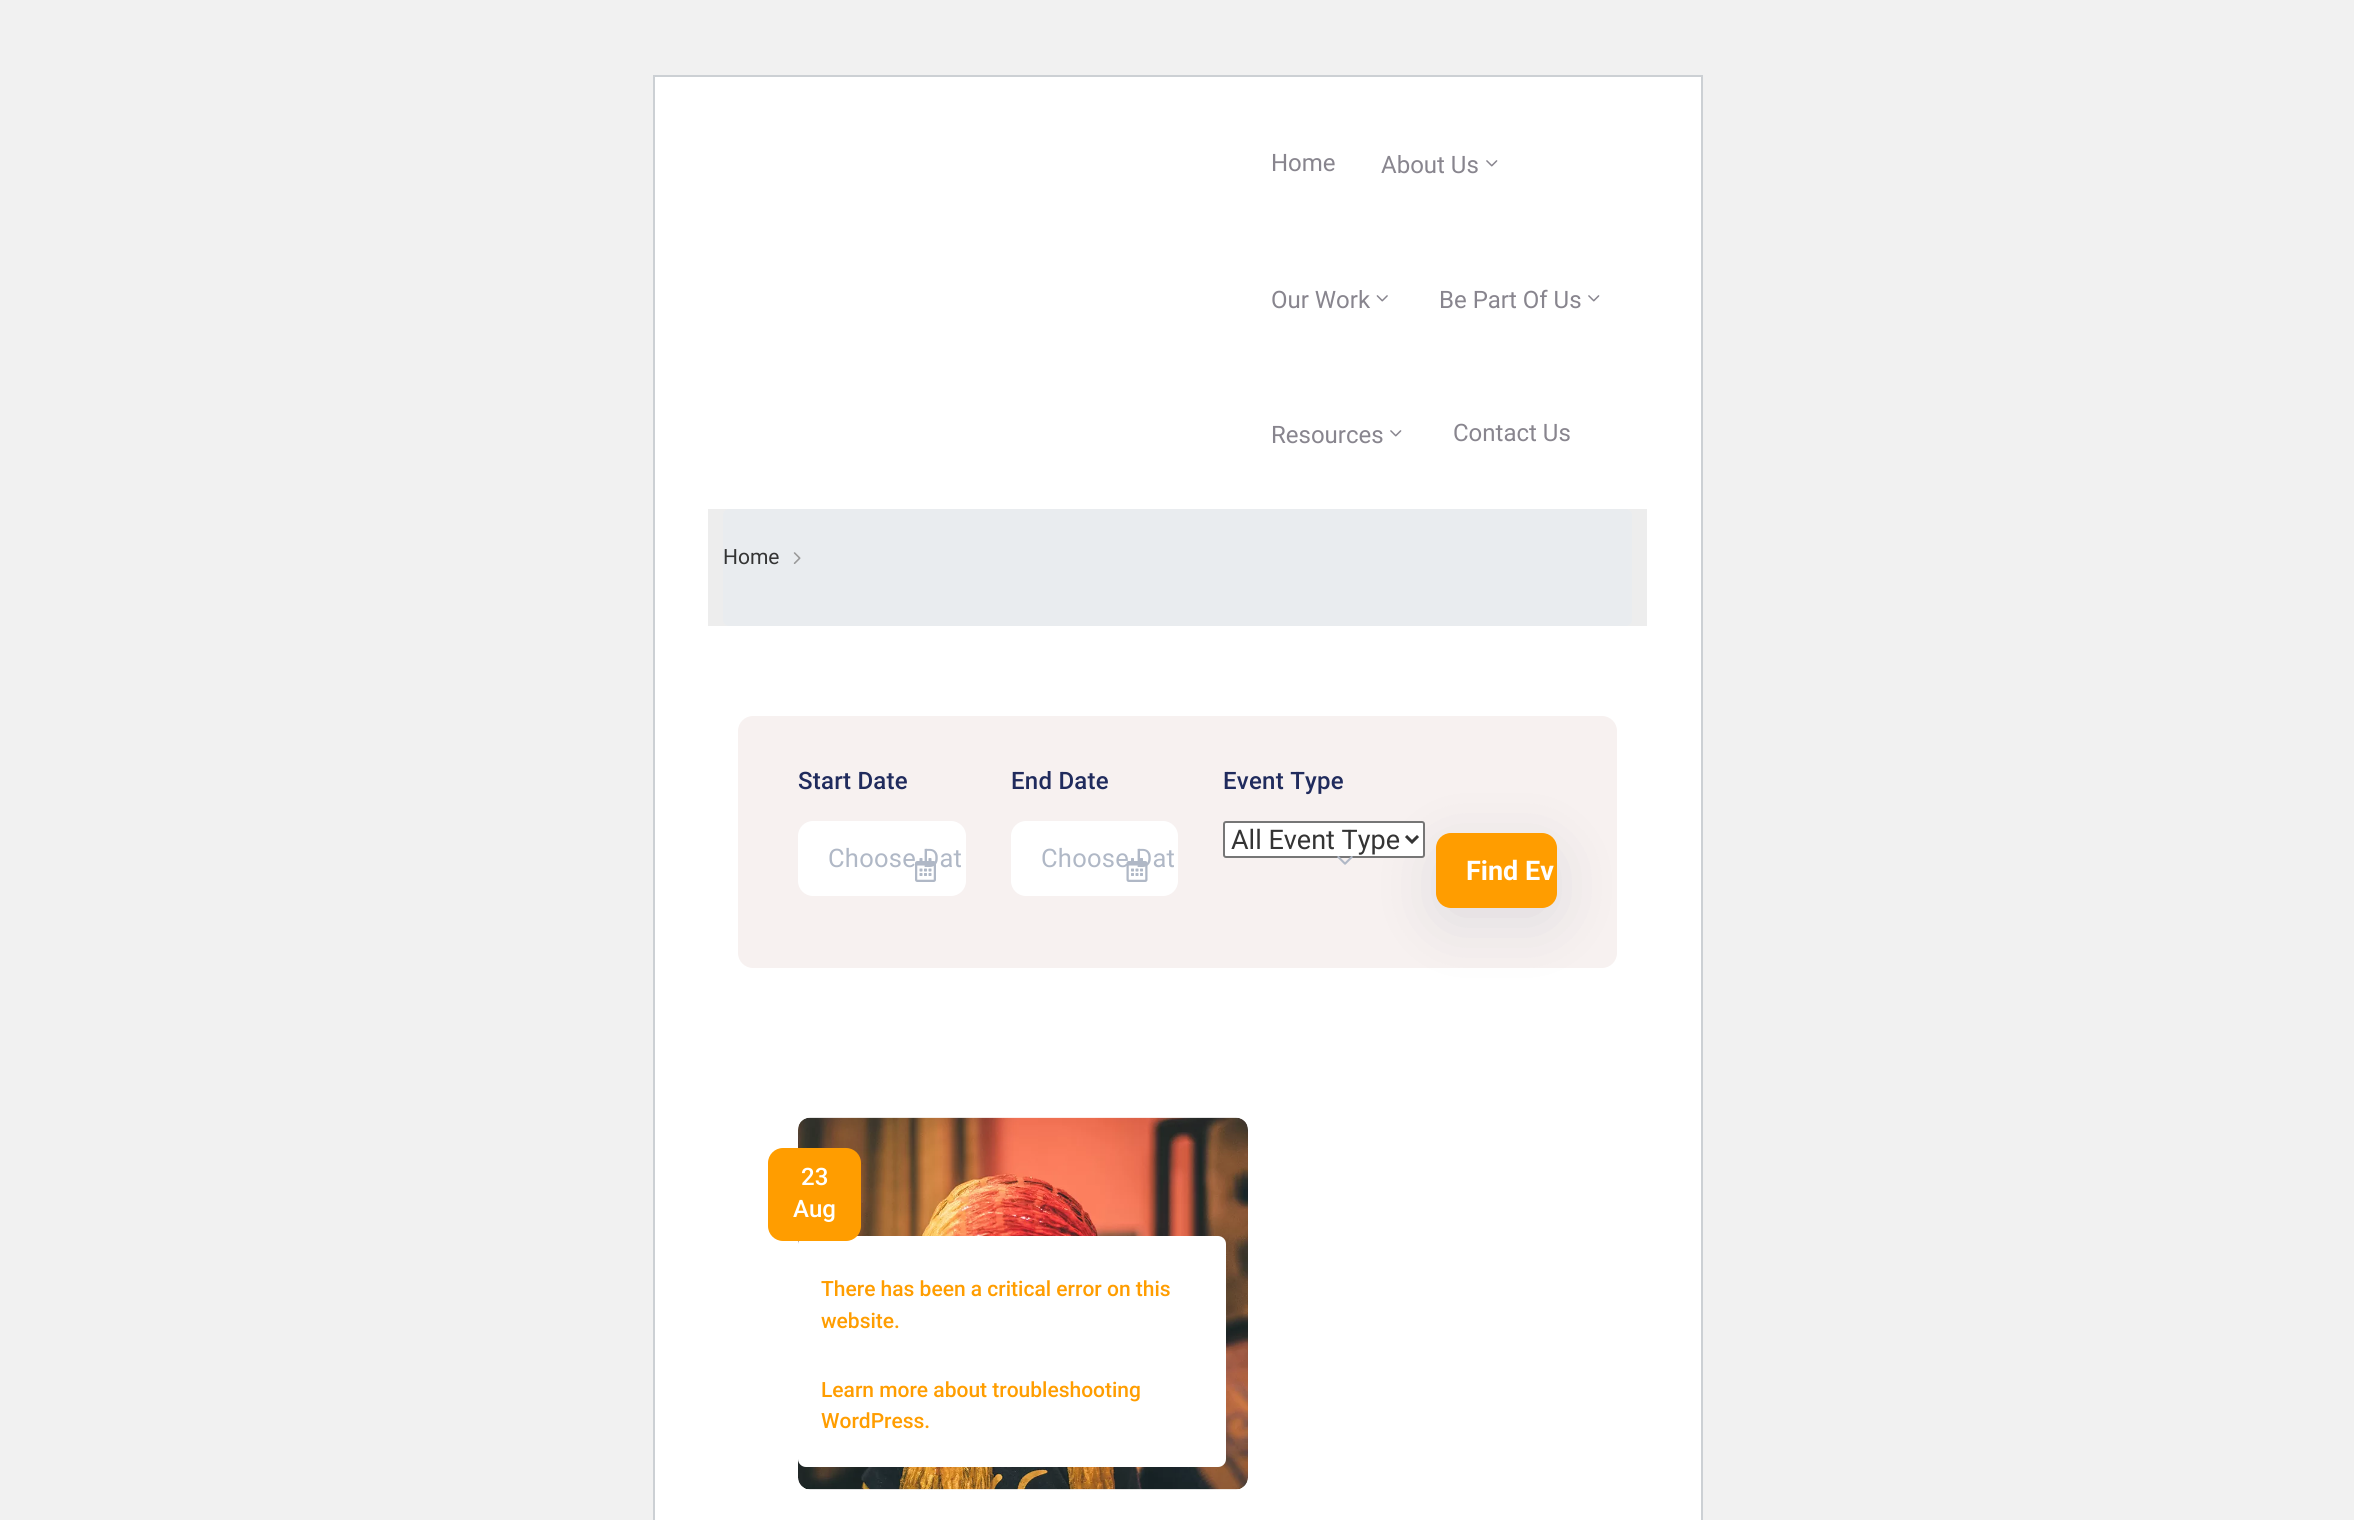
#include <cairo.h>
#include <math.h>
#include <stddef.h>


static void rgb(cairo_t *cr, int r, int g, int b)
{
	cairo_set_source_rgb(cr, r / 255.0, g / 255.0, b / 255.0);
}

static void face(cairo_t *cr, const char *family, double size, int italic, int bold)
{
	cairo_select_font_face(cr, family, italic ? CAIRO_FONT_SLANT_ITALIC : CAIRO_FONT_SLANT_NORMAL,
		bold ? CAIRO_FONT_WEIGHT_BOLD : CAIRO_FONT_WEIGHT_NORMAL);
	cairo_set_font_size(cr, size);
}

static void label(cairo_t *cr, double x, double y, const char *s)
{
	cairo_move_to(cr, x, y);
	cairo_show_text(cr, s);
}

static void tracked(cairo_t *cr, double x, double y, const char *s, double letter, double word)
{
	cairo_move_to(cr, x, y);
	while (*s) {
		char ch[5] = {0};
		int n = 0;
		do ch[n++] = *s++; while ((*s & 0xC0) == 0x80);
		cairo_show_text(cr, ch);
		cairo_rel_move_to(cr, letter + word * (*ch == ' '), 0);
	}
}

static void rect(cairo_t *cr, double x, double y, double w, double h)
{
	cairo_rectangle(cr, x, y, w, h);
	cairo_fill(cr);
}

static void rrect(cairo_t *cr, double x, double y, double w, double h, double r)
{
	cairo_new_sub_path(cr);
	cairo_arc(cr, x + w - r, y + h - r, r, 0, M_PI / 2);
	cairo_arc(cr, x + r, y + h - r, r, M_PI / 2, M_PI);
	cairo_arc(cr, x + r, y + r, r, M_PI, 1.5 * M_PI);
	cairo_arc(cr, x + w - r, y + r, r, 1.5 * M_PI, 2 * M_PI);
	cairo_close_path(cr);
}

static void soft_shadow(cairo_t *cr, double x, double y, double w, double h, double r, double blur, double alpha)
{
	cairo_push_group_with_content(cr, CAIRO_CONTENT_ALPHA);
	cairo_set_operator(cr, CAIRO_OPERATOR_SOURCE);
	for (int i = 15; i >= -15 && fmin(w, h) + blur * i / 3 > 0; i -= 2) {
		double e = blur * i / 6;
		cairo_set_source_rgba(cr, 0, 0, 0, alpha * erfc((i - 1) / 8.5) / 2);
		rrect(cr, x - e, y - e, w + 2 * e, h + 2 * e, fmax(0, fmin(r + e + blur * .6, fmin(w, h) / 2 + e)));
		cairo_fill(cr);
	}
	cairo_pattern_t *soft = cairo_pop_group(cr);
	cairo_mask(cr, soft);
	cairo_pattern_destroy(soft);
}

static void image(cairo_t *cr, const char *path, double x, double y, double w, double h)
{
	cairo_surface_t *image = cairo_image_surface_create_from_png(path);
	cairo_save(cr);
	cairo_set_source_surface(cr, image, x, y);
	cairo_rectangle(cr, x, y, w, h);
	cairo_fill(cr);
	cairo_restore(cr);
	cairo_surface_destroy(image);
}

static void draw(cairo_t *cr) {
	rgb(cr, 241, 241, 241);
	cairo_paint(cr);
	rgb(cr, 255, 255, 255);
	cairo_rectangle(cr, 654, 76, 1048, 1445);
	cairo_fill_preserve(cr);
	rgb(cr, 204, 208, 212);
	cairo_stroke(cr);
	face(cr, "Roboto", 24, 0, 0);
	rgb(cr, 136, 133, 142);
	label(cr, 1271, 171, "Home");
	label(cr, 1381, 173, "About Us");
	image(cr, "image0.png", 1486, 160, 12, 7);
	label(cr, 1271, 308, "Our Work");
	image(cr, "image1.png", 1376, 295, 12, 7);
	label(cr, 1439, 308, "Be Part Of Us");
	image(cr, "image0.png", 1588, 295, 12, 7);
	label(cr, 1271, 443, "Resources");
	image(cr, "image0.png", 1390, 430, 12, 7);
	label(cr, 1453, 441, "Contact Us");
	rgb(cr, 237, 237, 237);
	rect(cr, 708, 509, 939, 117);
	rgb(cr, 233, 236, 239);
	rrect(cr, 723, 509, 909, 117, 6);
	cairo_fill(cr);
	face(cr, "Roboto", 21, 0, 0);
	rgb(cr, 52, 52, 52);
	label(cr, 723, 564, "Home");
	image(cr, "image2.png", 793, 552, 8, 12);
	rgb(cr, 247, 241, 240);
	rrect(cr, 738, 716, 879, 252, 15);
	cairo_fill(cr);
	face(cr, "Roboto Medium", 24, 0, 0);
	rgb(cr, 32, 43, 93);
	tracked(cr, 798, 789, "Start Date", 0.25, 0);
	rgb(cr, 255, 255, 255);
	rrect(cr, 798, 821, 168, 75, 15);
	cairo_fill(cr);
	face(cr, "Roboto", 25.5, 0, 0);
	rgb(cr, 176, 184, 198);
	tracked(cr, 828, 867, "Choose Dat", 0.25, 0);
	image(cr, "image3.png", 915, 858, 21, 24);
	face(cr, "Roboto Medium", 24, 0, 0);
	rgb(cr, 32, 43, 93);
	tracked(cr, 1011, 789, "End Date", 0.25, 0);
	rgb(cr, 255, 255, 255);
	rrect(cr, 1011, 821, 167, 75, 15);
	cairo_fill(cr);
	face(cr, "Roboto", 25.5, 0, 0);
	rgb(cr, 176, 184, 198);
	tracked(cr, 1041, 867, "Choose Dat", 0.25, 0);
	image(cr, "image4.png", 1126, 858, 22, 24);
	face(cr, "Roboto Medium", 24, 0, 0);
	rgb(cr, 32, 43, 93);
	tracked(cr, 1223, 789, "Event Type", 0.25, 0);
	rgb(cr, 6, 22, 58);
	soft_shadow(cr, 1436, 848, 121, 75, 15, 30, 0.1);
	rgb(cr, 255, 255, 255);
	rrect(cr, 1224, 822, 200, 35, 2);
	cairo_fill_preserve(cr);
	rgb(cr, 118, 118, 118);
	cairo_stroke(cr);
	cairo_new_path(cr);
	cairo_move_to(cr, 1406, 836);
	cairo_line_to(cr, 1412, 842);
	cairo_line_to(cr, 1418, 836);
	rgb(cr, 52, 52, 52);
	cairo_set_line_width(cr, 3);
	cairo_stroke(cr);
	face(cr, "Roboto", 27, 0, 0);
	label(cr, 1231, 849, "All Event Type");
	image(cr, "image5.png", 1337, 856, 16, 9);
	rgb(cr, 255, 157, 0);
	rrect(cr, 1436, 833, 121, 75, 15);
	cairo_fill(cr);
	face(cr, "Roboto", 27, 0, 1);
	rgb(cr, 255, 255, 255);
	label(cr, 1466, 880, "Find Ev");
	image(cr, "image6.png", 798, 1117, 450, 373);
	rrect(cr, 798, 1236, 428, 231, 8);
	cairo_fill(cr);
	rgb(cr, 255, 157, 0);
	rrect(cr, 768, 1148, 93, 93, 15);
	cairo_fill(cr);
	face(cr, "Roboto Medium", 24, 0, 0);
	rgb(cr, 255, 255, 255);
	label(cr, 801, 1185, "23");
	label(cr, 793, 1217, "Aug");
	face(cr, "Roboto Medium", 21, 0, 0);
	rgb(cr, 255, 157, 0);
	label(cr, 821, 1296, "There has been a critical error on this");
	label(cr, 821, 1328, "website.");
	label(cr, 821, 1397, "Learn more about troubleshooting");
	label(cr, 821, 1428, "WordPress.");
}

int main(void) {
	cairo_surface_t *surface = cairo_image_surface_create(CAIRO_FORMAT_RGB24, 2354, 1520);
	cairo_t *cr = cairo_create(surface);
	cairo_font_options_t *options = cairo_font_options_create();
	cairo_font_options_set_hint_metrics(options, CAIRO_HINT_METRICS_OFF);
	cairo_font_options_set_hint_style(options, CAIRO_HINT_STYLE_NONE);
	cairo_set_font_options(cr, options);
	cairo_set_miter_limit(cr, 4);
	draw(cr);
	cairo_surface_write_to_png(surface, "render.png");
	cairo_font_options_destroy(options);
	cairo_destroy(cr);
	cairo_surface_destroy(surface);
	return 0;
}
